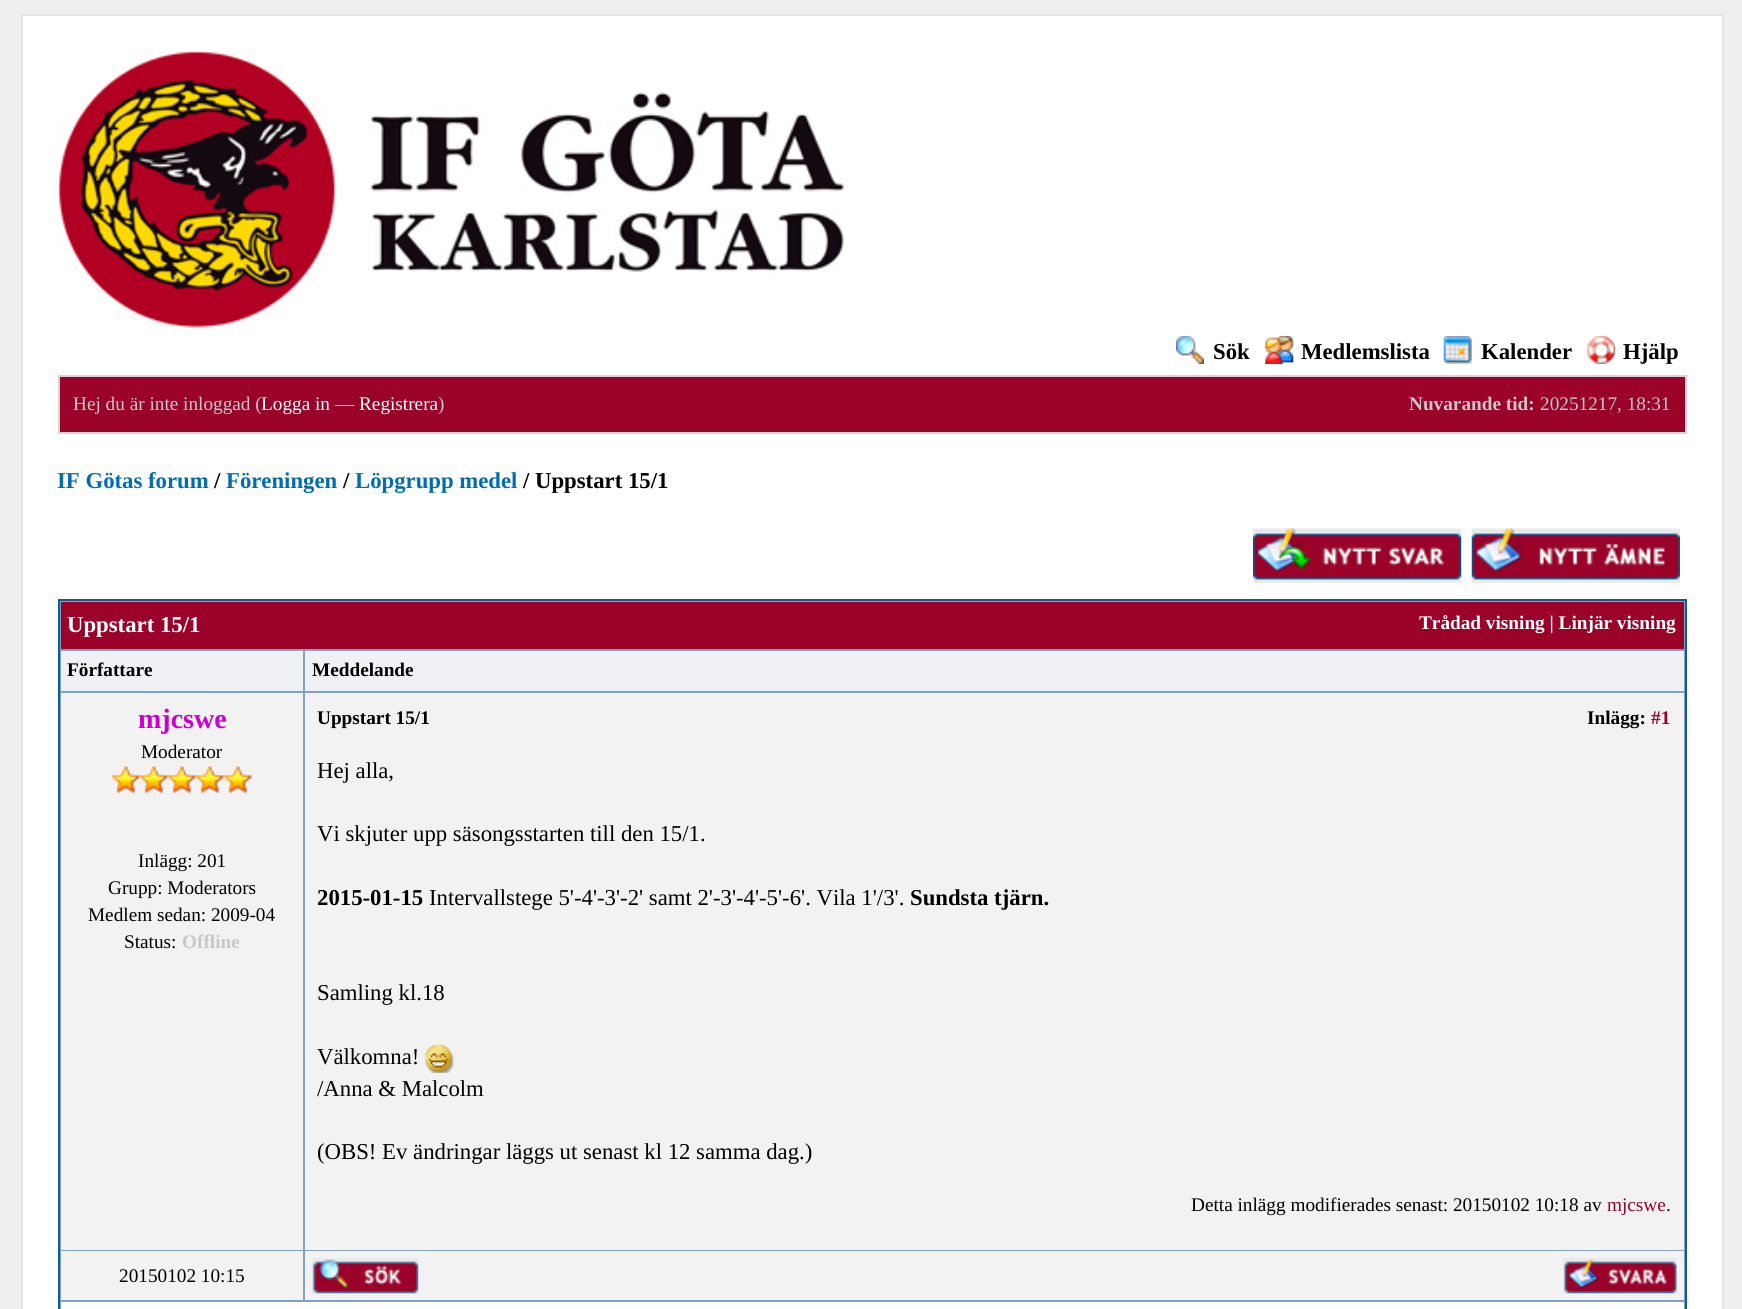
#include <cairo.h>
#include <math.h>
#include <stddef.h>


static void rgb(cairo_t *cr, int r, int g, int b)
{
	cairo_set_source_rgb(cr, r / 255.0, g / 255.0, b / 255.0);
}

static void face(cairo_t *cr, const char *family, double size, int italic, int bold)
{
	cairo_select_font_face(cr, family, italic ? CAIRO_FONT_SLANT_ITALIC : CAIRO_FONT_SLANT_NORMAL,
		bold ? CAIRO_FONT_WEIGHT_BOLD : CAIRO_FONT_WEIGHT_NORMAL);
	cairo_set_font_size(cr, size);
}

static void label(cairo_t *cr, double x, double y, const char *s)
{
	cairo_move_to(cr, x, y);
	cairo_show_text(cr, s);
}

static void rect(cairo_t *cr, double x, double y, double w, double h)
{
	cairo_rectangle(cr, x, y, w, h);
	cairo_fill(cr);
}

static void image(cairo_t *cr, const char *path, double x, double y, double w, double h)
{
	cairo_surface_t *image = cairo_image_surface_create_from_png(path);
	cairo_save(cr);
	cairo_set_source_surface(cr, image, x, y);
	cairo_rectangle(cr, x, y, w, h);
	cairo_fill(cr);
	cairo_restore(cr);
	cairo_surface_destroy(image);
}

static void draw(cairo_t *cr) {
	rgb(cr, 239, 239, 239);
	cairo_paint(cr);
	rgb(cr, 255, 255, 255);
	cairo_rectangle(cr, 22, 15, 1701, 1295);
	cairo_fill_preserve(cr);
	rgb(cr, 228, 228, 228);
	cairo_stroke(cr);
	image(cr, "image0.png", 57, 50, 787, 278);
	image(cr, "image1.png", 1176, 336, 28, 28);
	face(cr, "Liberation Serif", 22.75, 0, 1);
	rgb(cr, 0, 0, 0);
	label(cr, 1213, 359, "Sök");
	image(cr, "image2.png", 1265, 336, 29, 28);
	label(cr, 1301, 359, "Medlemslista");
	image(cr, "image3.png", 1443, 336, 29, 28);
	label(cr, 1481, 359, "Kalender");
	image(cr, "image4.png", 1587, 336, 29, 28);
	label(cr, 1623, 359, "Hjälp");
	rgb(cr, 154, 2, 41);
	cairo_rectangle(cr, 59, 376, 1627, 57);
	cairo_fill_preserve(cr);
	rgb(cr, 212, 212, 212);
	cairo_stroke(cr);
	face(cr, "Liberation Serif", 19.25, 0, 0);
	rgb(cr, 200, 200, 200);
	label(cr, 73, 410, "Hej du är inte inloggad (");
	rgb(cr, 255, 255, 255);
	label(cr, 261, 410, "Logga in");
	rgb(cr, 200, 200, 200);
	label(cr, 335, 410, "—");
	rgb(cr, 255, 255, 255);
	label(cr, 359, 410, "Registrera");
	rgb(cr, 200, 200, 200);
	label(cr, 438, 410, ")");
	face(cr, "Liberation Serif", 19.25, 0, 1);
	label(cr, 1409, 410, "Nuvarande tid:");
	face(cr, "Liberation Serif", 19.25, 0, 0);
	label(cr, 1540, 410, "20251217, 18:31");
	face(cr, "Liberation Serif", 22.75, 0, 1);
	rgb(cr, 2, 108, 177);
	label(cr, 57, 488, "IF Götas forum");
	rgb(cr, 0, 0, 0);
	label(cr, 214, 488, "/");
	rgb(cr, 2, 108, 177);
	label(cr, 226, 488, "Föreningen");
	rgb(cr, 0, 0, 0);
	label(cr, 343, 488, "/");
	rgb(cr, 2, 108, 177);
	label(cr, 355, 488, "Löpgrupp medel");
	rgb(cr, 0, 0, 0);
	label(cr, 523, 488, "/ Uppstart 15/1");
	image(cr, "image5.png", 1253, 528, 209, 55);
	image(cr, "image6.png", 1471, 528, 209, 55);
	rgb(cr, 129, 162, 196);
	cairo_rectangle(cr, 59, 600, 1627, 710);
	cairo_fill_preserve(cr);
	rgb(cr, 15, 92, 142);
	cairo_stroke(cr);
	rgb(cr, 154, 2, 41);
	rect(cr, 61, 602, 1623, 47);
	rgb(cr, 255, 255, 255);
	label(cr, 67, 632, "Uppstart 15/1");
	face(cr, "Liberation Serif", 19.25, 0, 1);
	label(cr, 1419, 629, "Trådad visning | Linjär visning");
	rgb(cr, 239, 241, 245);
	rect(cr, 61, 651, 242, 40);
	rgb(cr, 0, 0, 0);
	label(cr, 67, 676, "Författare");
	rgb(cr, 239, 241, 245);
	rect(cr, 305, 651, 1379, 40);
	rgb(cr, 0, 0, 0);
	label(cr, 312, 676, "Meddelande");
	rgb(cr, 242, 242, 242);
	rect(cr, 61, 693, 242, 557);
	face(cr, "Liberation Serif", 28, 0, 1);
	rgb(cr, 204, 0, 204);
	label(cr, 138, 728, "mjcswe");
	face(cr, "Liberation Serif", 19.25, 0, 0);
	rgb(cr, 0, 0, 0);
	label(cr, 141, 758, "Moderator");
	image(cr, "image7.png", 112, 766, 28, 28);
	image(cr, "image7.png", 140, 766, 28, 28);
	image(cr, "image8.png", 168, 766, 28, 28);
	image(cr, "image8.png", 196, 766, 28, 28);
	image(cr, "image7.png", 224, 766, 28, 28);
	label(cr, 138, 867, "Inlägg: 201");
	label(cr, 108, 894, "Grupp: Moderators");
	label(cr, 88, 921, "Medlem sedan: 2009-04");
	label(cr, 124, 948, "Status:");
	face(cr, "Liberation Serif", 19.25, 0, 1);
	rgb(cr, 200, 200, 200);
	label(cr, 182, 948, "Offline");
	rgb(cr, 242, 242, 242);
	rect(cr, 305, 693, 1379, 557);
	rgb(cr, 0, 0, 0);
	label(cr, 317, 724, "Uppstart 15/1");
	label(cr, 1587, 724, "Inlägg:");
	rgb(cr, 154, 2, 41);
	label(cr, 1651, 724, "#1");
	face(cr, "Liberation Serif", 22.75, 0, 0);
	rgb(cr, 0, 0, 0);
	label(cr, 317, 778, "Hej alla,");
	label(cr, 317, 841, "Vi skjuter upp säsongsstarten till den 15/1.");
	face(cr, "Liberation Serif", 22.75, 0, 1);
	label(cr, 317, 905, "2015-01-15");
	face(cr, "Liberation Serif", 22.75, 0, 0);
	label(cr, 429, 905, "Intervallstege 5'-4'-3'-2' samt 2'-3'-4'-5'-6'. Vila 1'/3'.");
	face(cr, "Liberation Serif", 22.75, 0, 1);
	label(cr, 910, 905, "Sundsta tjärn.");
	face(cr, "Liberation Serif", 22.75, 0, 0);
	label(cr, 317, 1000, "Samling kl.18");
	label(cr, 317, 1064, "Välkomna!");
	image(cr, "image9.png", 425, 1044, 29, 29);
	label(cr, 317, 1096, "/Anna & Malcolm");
	label(cr, 317, 1159, "(OBS! Ev ändringar läggs ut senast kl 12 samma dag.)");
	face(cr, "Liberation Serif", 19.25, 0, 0);
	label(cr, 1191, 1211, "Detta inlägg modifierades senast: 20150102 10:18 av");
	rgb(cr, 154, 2, 41);
	label(cr, 1607, 1211, "mjcswe");
	rgb(cr, 0, 0, 0);
	label(cr, 1666, 1211, ".");
	rgb(cr, 242, 242, 242);
	rect(cr, 61, 1251, 242, 49);
	rgb(cr, 0, 0, 0);
	label(cr, 119, 1282, "20150102 10:15");
	rgb(cr, 242, 242, 242);
	rect(cr, 305, 1251, 1379, 49);
	image(cr, "image10.png", 311, 1258, 108, 36);
	image(cr, "image11.png", 1563, 1258, 114, 36);
	rgb(cr, 255, 255, 255);
	rect(cr, 61, 1302, 1623, 7);
}

int main(void) {
	cairo_surface_t *surface = cairo_image_surface_create(CAIRO_FORMAT_RGB24, 1742, 1309);
	cairo_t *cr = cairo_create(surface);
	cairo_font_options_t *options = cairo_font_options_create();
	cairo_font_options_set_hint_metrics(options, CAIRO_HINT_METRICS_OFF);
	cairo_font_options_set_hint_style(options, CAIRO_HINT_STYLE_NONE);
	cairo_set_font_options(cr, options);
	cairo_set_miter_limit(cr, 4);
	draw(cr);
	cairo_surface_write_to_png(surface, "render.png");
	cairo_font_options_destroy(options);
	cairo_destroy(cr);
	cairo_surface_destroy(surface);
	return 0;
}
